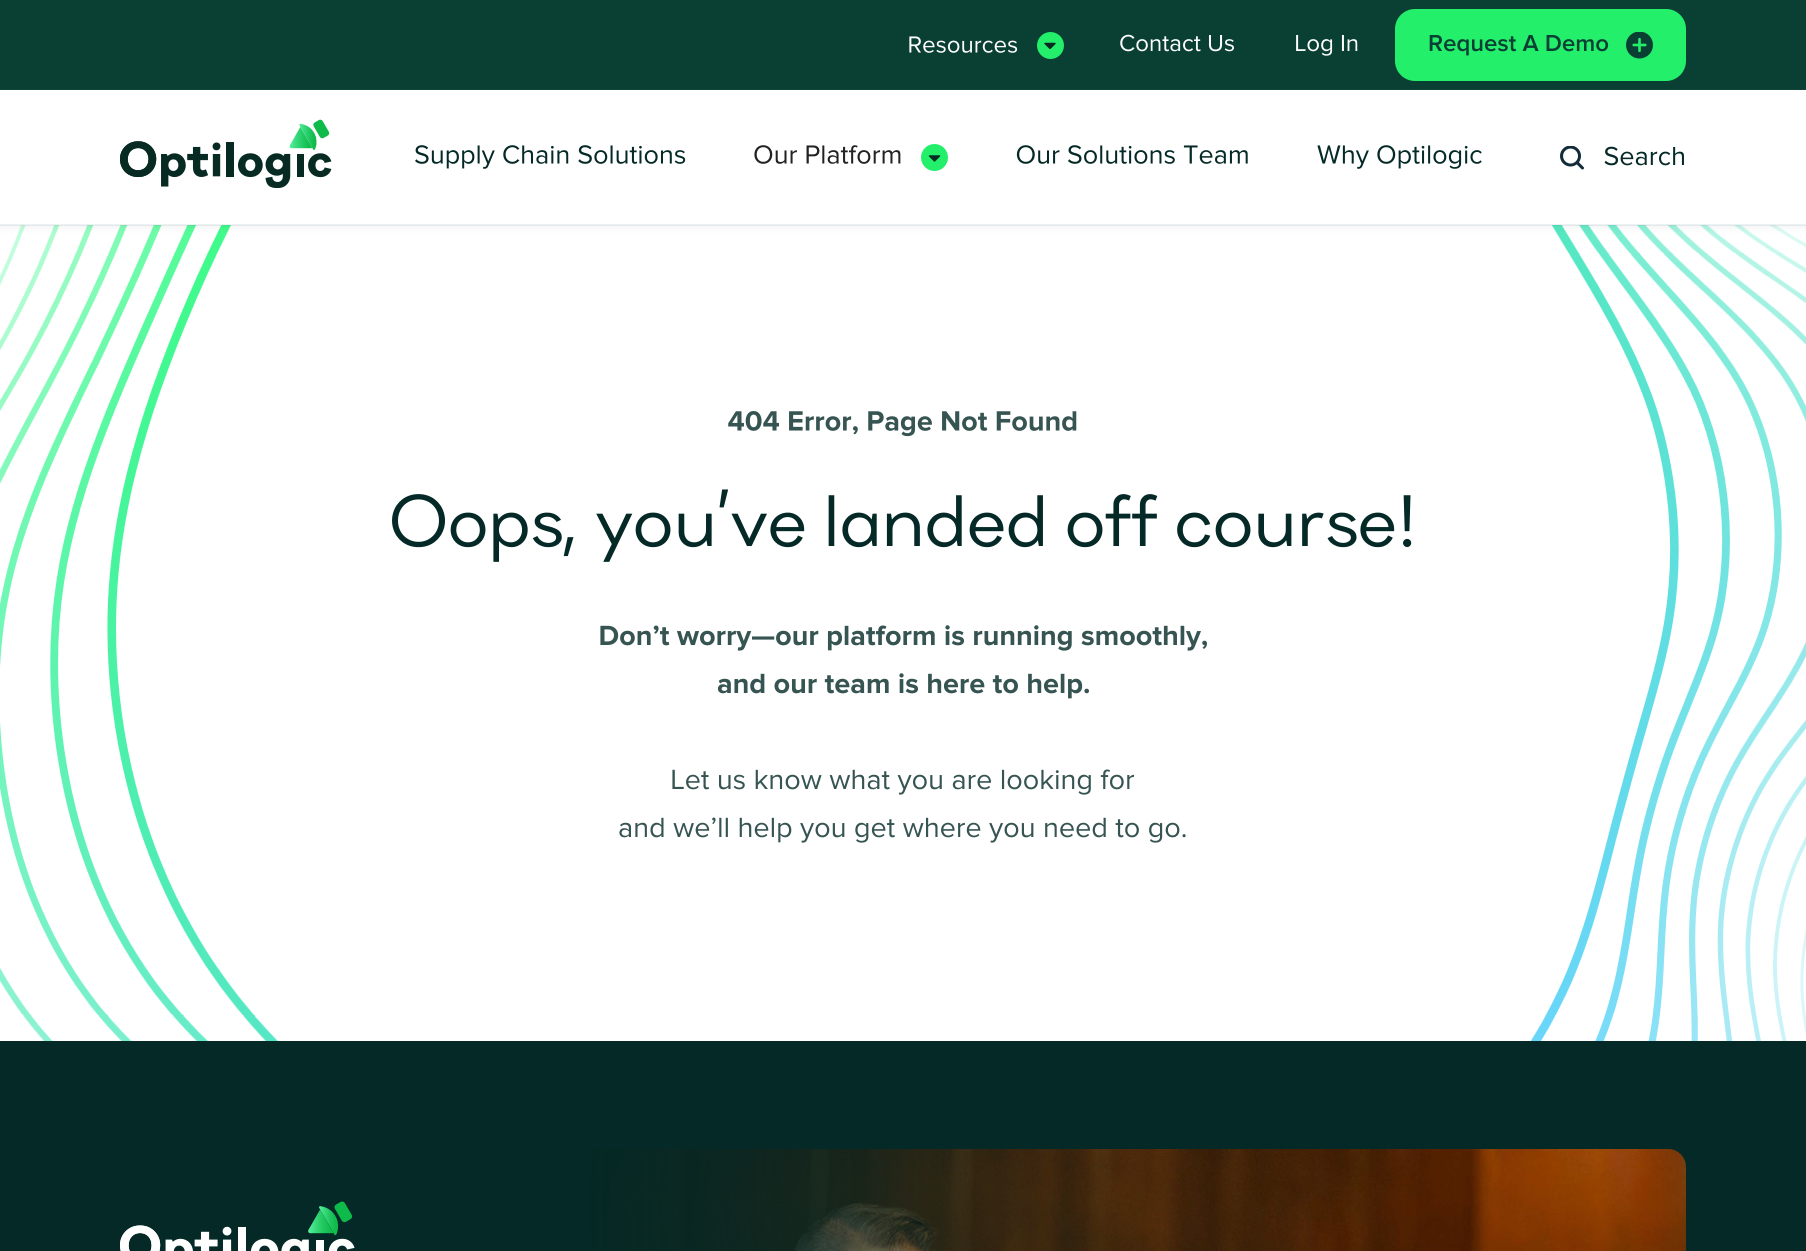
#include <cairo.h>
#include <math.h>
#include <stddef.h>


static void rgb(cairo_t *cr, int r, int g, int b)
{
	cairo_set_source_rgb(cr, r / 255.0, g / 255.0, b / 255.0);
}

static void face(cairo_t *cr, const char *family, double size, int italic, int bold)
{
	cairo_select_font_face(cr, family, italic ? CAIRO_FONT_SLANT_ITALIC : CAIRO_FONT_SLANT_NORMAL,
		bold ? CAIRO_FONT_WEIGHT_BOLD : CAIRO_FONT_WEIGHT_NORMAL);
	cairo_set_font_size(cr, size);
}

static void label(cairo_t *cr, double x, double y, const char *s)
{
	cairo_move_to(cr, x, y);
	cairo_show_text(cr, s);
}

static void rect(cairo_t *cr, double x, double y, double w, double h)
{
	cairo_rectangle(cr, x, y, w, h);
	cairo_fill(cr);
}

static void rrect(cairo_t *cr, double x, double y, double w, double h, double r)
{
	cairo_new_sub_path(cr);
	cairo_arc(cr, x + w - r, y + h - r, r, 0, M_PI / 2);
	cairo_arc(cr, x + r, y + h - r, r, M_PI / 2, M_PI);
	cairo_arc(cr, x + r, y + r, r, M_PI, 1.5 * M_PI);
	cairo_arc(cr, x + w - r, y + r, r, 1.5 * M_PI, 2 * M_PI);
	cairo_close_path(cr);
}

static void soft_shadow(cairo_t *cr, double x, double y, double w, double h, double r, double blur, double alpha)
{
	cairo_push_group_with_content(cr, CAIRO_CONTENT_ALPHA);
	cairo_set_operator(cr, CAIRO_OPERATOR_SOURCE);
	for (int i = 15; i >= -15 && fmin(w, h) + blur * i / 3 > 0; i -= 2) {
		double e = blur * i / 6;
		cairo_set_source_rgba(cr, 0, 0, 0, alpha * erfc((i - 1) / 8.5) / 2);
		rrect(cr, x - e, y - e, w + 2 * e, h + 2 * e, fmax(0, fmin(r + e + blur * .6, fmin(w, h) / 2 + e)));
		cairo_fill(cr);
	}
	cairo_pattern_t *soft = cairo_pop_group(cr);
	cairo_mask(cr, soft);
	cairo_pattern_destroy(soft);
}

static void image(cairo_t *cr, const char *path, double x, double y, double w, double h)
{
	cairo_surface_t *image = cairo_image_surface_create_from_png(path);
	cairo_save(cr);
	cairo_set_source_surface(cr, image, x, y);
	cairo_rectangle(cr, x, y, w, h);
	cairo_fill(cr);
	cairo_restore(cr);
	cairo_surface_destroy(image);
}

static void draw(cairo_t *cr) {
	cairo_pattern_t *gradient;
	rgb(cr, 255, 255, 255);
	cairo_paint(cr);
	image(cr, "image14.png", 0, 225, 1806, 816);
	rgb(cr, 0, 0, 0);
	soft_shadow(cr, 0, 3, 1806, 225, 0, 4, 0.05);
	rgb(cr, 10, 63, 52);
	rect(cr, 0, 0, 1806, 90);
	cairo_set_source_rgba(cr, 0.235, 0.431, 0.51, 0.1);
	rect(cr, 0, 89, 1806, 1);
	image(cr, "image0.png", 909, 36, 109, 17);
	image(cr, "image1.png", 1037, 32, 27, 27);
	image(cr, "image2.png", 1120, 34, 114, 18);
	image(cr, "image3.png", 1296, 35, 62, 21);
	rgb(cr, 35, 239, 106);
	rrect(cr, 1395, 9, 291, 72, 20);
	cairo_fill(cr);
	image(cr, "image4.png", 1429, 35, 180, 21);
	image(cr, "image5.png", 1626, 32, 27, 27);
	rgb(cr, 255, 255, 255);
	rect(cr, 0, 90, 1806, 135);
	cairo_set_source_rgba(cr, 0.235, 0.431, 0.51, 0.1);
	rect(cr, 0, 224, 1806, 2);
	image(cr, "image6.png", 120, 119, 212, 69);
	image(cr, "image7.png", 415, 145, 271, 24);
	image(cr, "image8.png", 754, 145, 147, 19);
	image(cr, "image9.png", 921, 144, 27, 27);
	image(cr, "image10.png", 1016, 145, 232, 19);
	image(cr, "image11.png", 1317, 145, 165, 24);
	image(cr, "image12.png", 1560, 146, 24, 24);
	image(cr, "image13.png", 1604, 146, 80, 20);
	image(cr, "image15.png", 728, 411, 349, 26);
	face(cr, "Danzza", 72, 0, 0);
	rgb(cr, 4, 41, 38);
	label(cr, 389, 546, "Oops, you’ve landed off course!");
	image(cr, "image16.png", 600, 625, 607, 26);
	image(cr, "image17.png", 718, 673, 371, 26);
	image(cr, "image18.png", 672, 769, 463, 26);
	image(cr, "image19.png", 619, 817, 567, 26);
	rect(cr, 0, 1041, 1806, 210);
	image(cr, "image21.png", 589, 1149, 1097, 102);
	gradient = cairo_pattern_create_radial(0, 0, 0, 0, 0, 1);
	cairo_pattern_set_matrix(gradient, &(cairo_matrix_t){1.0 / 1577, 0, 0, 1.0 / 835, -1.0 * 1874 / 1577, -1.0 * 1149 / 835});
	cairo_pattern_add_color_stop_rgba(gradient, 0.34, 0.016, 0.161, 0.149, 0);
	cairo_pattern_add_color_stop_rgba(gradient, 0.93, 0.016, 0.161, 0.149, 1);
	cairo_set_source(cr, gradient);
	cairo_pattern_destroy(gradient);
	rrect(cr, 120, 1149, 1566, 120, 18);
	cairo_fill(cr);
	gradient = cairo_pattern_create_radial(0, 0, 0, 0, 0, 1);
	cairo_pattern_set_matrix(gradient, &(cairo_matrix_t){1.0 / 799, 0, 0, 1.0 / 1161, -1.0 * 1305 / 799, -1.0 * 1204 / 1161});
	cairo_pattern_add_color_stop_rgba(gradient, 0.42, 0.016, 0.161, 0.149, 0);
	cairo_pattern_add_color_stop_rgba(gradient, 1, 0.016, 0.161, 0.149, 1);
	cairo_set_source(cr, gradient);
	cairo_pattern_destroy(gradient);
	rrect(cr, 120, 1149, 1566, 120, 18);
	cairo_fill(cr);
	image(cr, "image20.png", 120, 1201, 235, 50);
}

int main(void) {
	cairo_surface_t *surface = cairo_image_surface_create(CAIRO_FORMAT_RGB24, 1806, 1251);
	cairo_t *cr = cairo_create(surface);
	cairo_font_options_t *options = cairo_font_options_create();
	cairo_font_options_set_hint_metrics(options, CAIRO_HINT_METRICS_OFF);
	cairo_font_options_set_hint_style(options, CAIRO_HINT_STYLE_NONE);
	cairo_set_font_options(cr, options);
	cairo_set_miter_limit(cr, 4);
	draw(cr);
	cairo_surface_write_to_png(surface, "render.png");
	cairo_font_options_destroy(options);
	cairo_destroy(cr);
	cairo_surface_destroy(surface);
	return 0;
}
